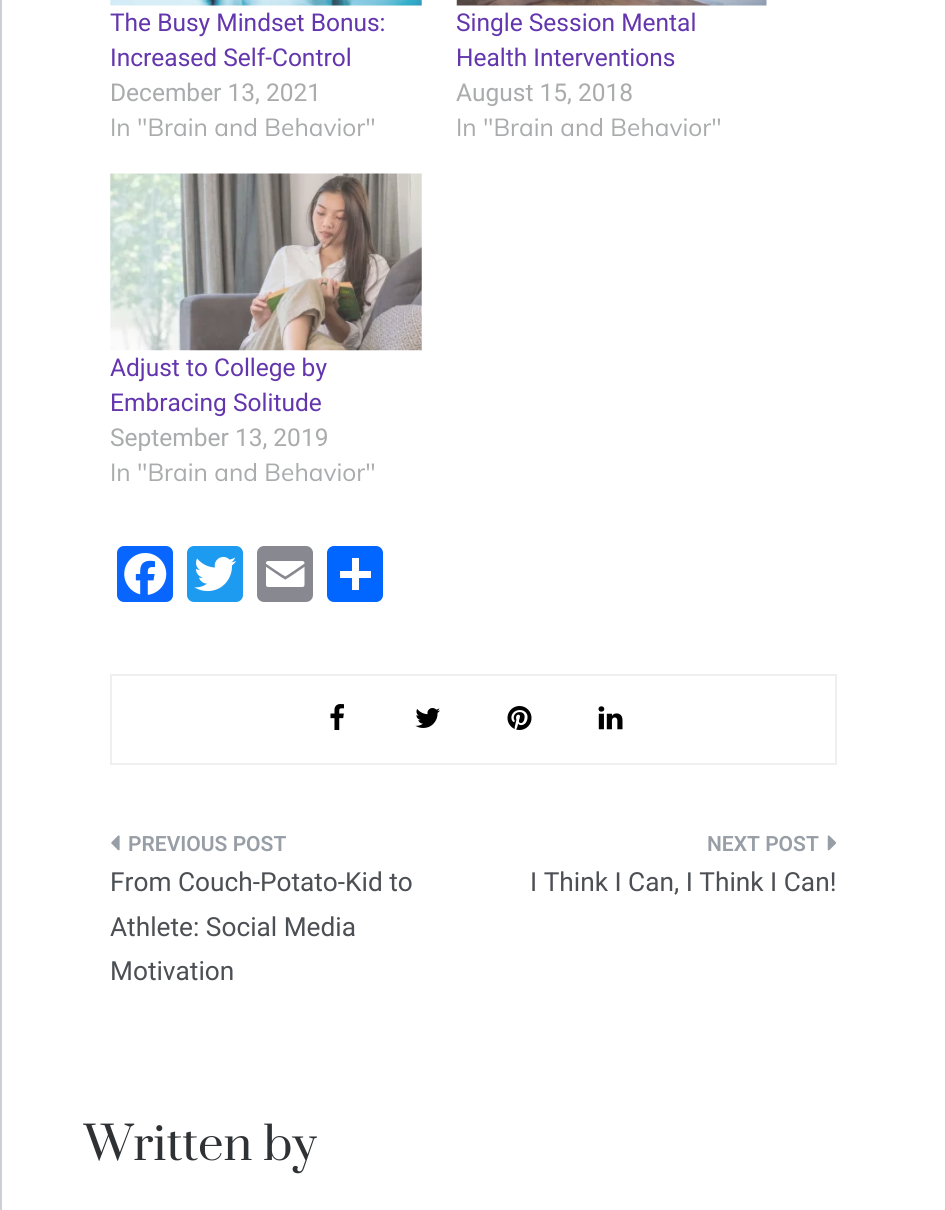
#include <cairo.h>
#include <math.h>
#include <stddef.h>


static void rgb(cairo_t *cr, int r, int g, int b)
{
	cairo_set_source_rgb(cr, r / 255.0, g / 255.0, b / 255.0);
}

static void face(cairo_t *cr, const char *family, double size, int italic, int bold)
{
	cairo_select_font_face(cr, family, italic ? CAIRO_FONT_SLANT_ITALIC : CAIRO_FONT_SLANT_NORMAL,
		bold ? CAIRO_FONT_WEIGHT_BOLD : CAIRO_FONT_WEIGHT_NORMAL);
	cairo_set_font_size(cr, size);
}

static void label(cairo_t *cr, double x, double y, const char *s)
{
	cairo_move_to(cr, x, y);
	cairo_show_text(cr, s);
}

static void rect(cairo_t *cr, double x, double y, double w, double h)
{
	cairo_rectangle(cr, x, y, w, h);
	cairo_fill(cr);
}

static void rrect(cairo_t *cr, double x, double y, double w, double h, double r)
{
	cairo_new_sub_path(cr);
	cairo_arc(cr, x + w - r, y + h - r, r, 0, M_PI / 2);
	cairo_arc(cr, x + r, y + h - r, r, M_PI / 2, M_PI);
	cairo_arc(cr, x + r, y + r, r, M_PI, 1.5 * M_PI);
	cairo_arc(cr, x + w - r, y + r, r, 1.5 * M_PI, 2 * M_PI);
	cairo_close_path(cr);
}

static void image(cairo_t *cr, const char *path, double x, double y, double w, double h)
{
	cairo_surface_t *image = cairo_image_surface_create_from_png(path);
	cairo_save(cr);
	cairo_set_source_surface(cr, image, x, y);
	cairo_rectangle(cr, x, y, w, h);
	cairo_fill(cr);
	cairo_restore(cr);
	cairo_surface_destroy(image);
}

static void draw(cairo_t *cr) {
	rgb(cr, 255, 255, 255);
	cairo_paint(cr);
	cairo_rectangle(cr, 1, -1, 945, 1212);
	rgb(cr, 204, 208, 212);
	cairo_stroke(cr);
	image(cr, "image0.png", 110, 0, 312, 6);
	face(cr, "Roboto", 24.5, 0, 0);
	rgb(cr, 100, 54, 173);
	label(cr, 110, 31, "The Busy Mindset Bonus:");
	label(cr, 110, 66, "Increased Self-Control");
	rgb(cr, 169, 171, 172);
	label(cr, 110, 101, "December 13, 2021");
	face(cr, "Muli", 24.5, 0, 0);
	label(cr, 110, 136, "In \"Brain and Behavior\"");
	image(cr, "image1.png", 456, 0, 311, 6);
	face(cr, "Roboto", 24.5, 0, 0);
	rgb(cr, 100, 54, 173);
	label(cr, 456, 31, "Single Session Mental");
	label(cr, 456, 66, "Health Interventions");
	rgb(cr, 169, 171, 172);
	label(cr, 456, 101, "August 15, 2018");
	face(cr, "Muli", 24.5, 0, 0);
	label(cr, 456, 136, "In \"Brain and Behavior\"");
	image(cr, "image2.png", 110, 173, 312, 178);
	face(cr, "Roboto", 24.5, 0, 0);
	rgb(cr, 100, 54, 173);
	label(cr, 110, 376, "Adjust to College by");
	label(cr, 110, 411, "Embracing Solitude");
	rgb(cr, 169, 171, 172);
	label(cr, 110, 446, "September 13, 2019");
	face(cr, "Muli", 24.5, 0, 0);
	label(cr, 110, 481, "In \"Brain and Behavior\"");
	rgb(cr, 8, 102, 255);
	rrect(cr, 117, 546, 56, 56, 7);
	cairo_fill(cr);
	image(cr, "image3.png", 124, 553, 43, 42);
	rgb(cr, 29, 155, 240);
	rrect(cr, 187, 546, 56, 56, 7);
	cairo_fill(cr);
	image(cr, "image4.png", 194, 556, 43, 36);
	rgb(cr, 136, 137, 144);
	rrect(cr, 257, 546, 56, 56, 7);
	cairo_fill(cr);
	image(cr, "image5.png", 266, 561, 39, 26);
	rgb(cr, 1, 102, 255);
	rrect(cr, 327, 546, 56, 56, 7);
	cairo_fill(cr);
	rgb(cr, 255, 255, 255);
	rect(cr, 352, 558, 7, 32);
	rect(cr, 340, 571, 31, 7);
	cairo_rectangle(cr, 111, 675, 725, 89);
	rgb(cr, 238, 239, 239);
	cairo_stroke(cr);
	image(cr, "image6.png", 330, 704, 14, 26);
	image(cr, "image7.png", 415, 708, 25, 20);
	image(cr, "image8.png", 507, 706, 25, 24);
	image(cr, "image9.png", 598, 706, 25, 24);
	image(cr, "image10.png", 111, 835, 9, 16);
	face(cr, "Roboto SemiBold", 21, 0, 0);
	rgb(cr, 152, 158, 166);
	label(cr, 128, 851, "PREVIOUS POST");
	face(cr, "Roboto", 26.25, 0, 0);
	rgb(cr, 76, 79, 83);
	label(cr, 110, 891, "From Couch-Potato-Kid to");
	label(cr, 110, 936, "Athlete: Social Media");
	label(cr, 110, 980, "Motivation");
	face(cr, "Roboto SemiBold", 21, 0, 0);
	rgb(cr, 152, 158, 166);
	label(cr, 707, 851, "NEXT POST");
	image(cr, "image11.png", 827, 835, 10, 16);
	face(cr, "Roboto", 26.25, 0, 0);
	rgb(cr, 76, 79, 83);
	label(cr, 530, 891, "I Think I Can, I Think I Can!");
	face(cr, "Prata", 45.5, 0, 0);
	rgb(cr, 47, 50, 53);
	label(cr, 84, 1160, "Written by");
}

int main(void) {
	cairo_surface_t *surface = cairo_image_surface_create(CAIRO_FORMAT_RGB24, 946, 1210);
	cairo_t *cr = cairo_create(surface);
	cairo_font_options_t *options = cairo_font_options_create();
	cairo_font_options_set_hint_metrics(options, CAIRO_HINT_METRICS_OFF);
	cairo_font_options_set_hint_style(options, CAIRO_HINT_STYLE_NONE);
	cairo_set_font_options(cr, options);
	cairo_set_miter_limit(cr, 4);
	draw(cr);
	cairo_surface_write_to_png(surface, "render.png");
	cairo_font_options_destroy(options);
	cairo_destroy(cr);
	cairo_surface_destroy(surface);
	return 0;
}
